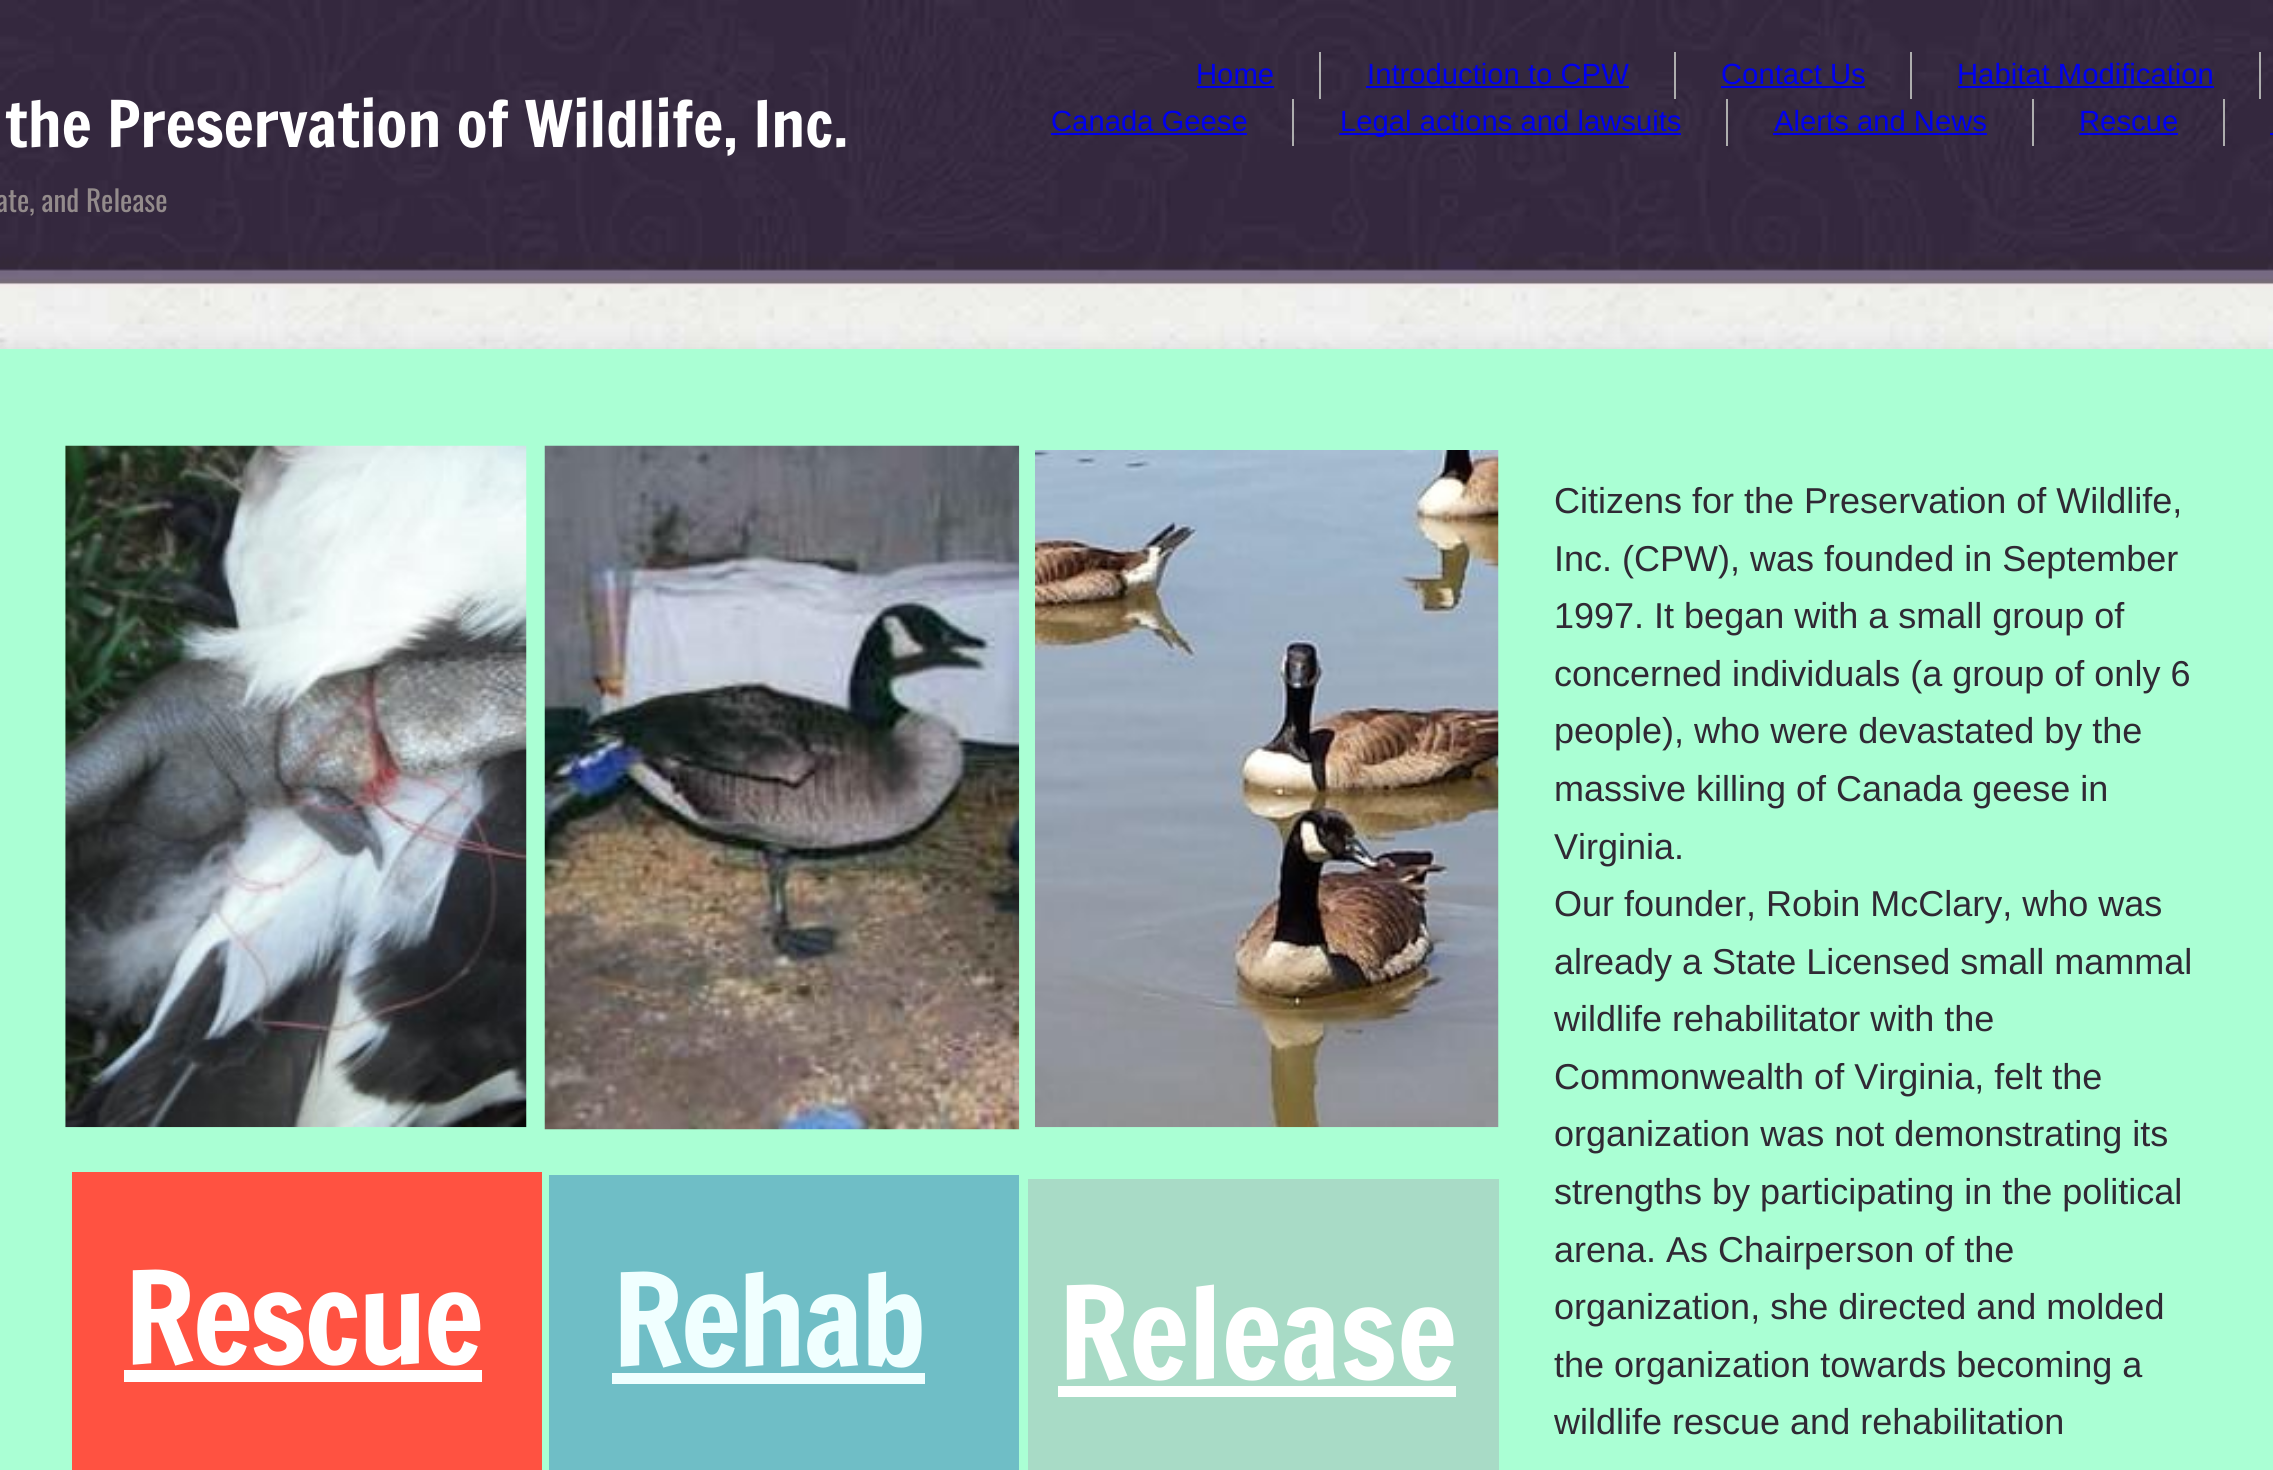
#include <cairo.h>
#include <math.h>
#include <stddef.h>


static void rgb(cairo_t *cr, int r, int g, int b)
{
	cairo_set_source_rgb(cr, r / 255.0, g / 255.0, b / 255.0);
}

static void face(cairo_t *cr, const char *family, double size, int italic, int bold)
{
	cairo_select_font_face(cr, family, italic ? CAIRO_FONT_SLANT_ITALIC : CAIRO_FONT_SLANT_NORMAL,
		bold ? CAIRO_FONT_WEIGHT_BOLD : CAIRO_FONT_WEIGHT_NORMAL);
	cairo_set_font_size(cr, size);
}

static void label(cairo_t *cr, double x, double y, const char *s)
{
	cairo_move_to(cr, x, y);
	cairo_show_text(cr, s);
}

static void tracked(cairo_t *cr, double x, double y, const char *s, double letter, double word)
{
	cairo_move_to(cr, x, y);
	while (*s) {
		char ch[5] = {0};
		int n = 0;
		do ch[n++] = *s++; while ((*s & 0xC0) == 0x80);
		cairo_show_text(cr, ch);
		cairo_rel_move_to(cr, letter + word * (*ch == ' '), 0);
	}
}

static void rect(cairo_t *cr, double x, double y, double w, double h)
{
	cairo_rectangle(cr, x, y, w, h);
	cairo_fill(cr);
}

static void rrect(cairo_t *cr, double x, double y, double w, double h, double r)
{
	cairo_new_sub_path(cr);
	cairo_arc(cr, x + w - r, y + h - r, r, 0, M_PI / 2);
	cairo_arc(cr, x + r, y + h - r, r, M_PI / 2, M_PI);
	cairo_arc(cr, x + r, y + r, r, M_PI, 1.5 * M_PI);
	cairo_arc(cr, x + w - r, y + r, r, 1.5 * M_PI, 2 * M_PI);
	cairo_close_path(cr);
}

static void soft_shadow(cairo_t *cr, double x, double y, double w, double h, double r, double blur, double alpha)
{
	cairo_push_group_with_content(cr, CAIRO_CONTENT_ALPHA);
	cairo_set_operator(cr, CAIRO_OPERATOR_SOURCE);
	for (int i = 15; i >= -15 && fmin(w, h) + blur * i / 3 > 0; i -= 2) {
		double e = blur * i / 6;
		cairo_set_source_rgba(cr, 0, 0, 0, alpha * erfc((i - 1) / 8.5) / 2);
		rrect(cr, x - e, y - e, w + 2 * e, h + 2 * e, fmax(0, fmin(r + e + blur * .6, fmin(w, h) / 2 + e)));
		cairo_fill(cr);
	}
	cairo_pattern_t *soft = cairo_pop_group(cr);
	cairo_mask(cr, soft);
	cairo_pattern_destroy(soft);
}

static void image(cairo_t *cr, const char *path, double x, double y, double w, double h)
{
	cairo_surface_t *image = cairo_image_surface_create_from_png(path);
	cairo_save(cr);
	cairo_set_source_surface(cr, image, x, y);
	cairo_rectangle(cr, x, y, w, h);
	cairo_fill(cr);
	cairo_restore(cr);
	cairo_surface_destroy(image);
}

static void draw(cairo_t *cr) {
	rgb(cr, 255, 255, 255);
	cairo_paint(cr);
	image(cr, "image0.png", 0, 0, 2273, 349);
	rgb(cr, 0, 0, 0);
	soft_shadow(cr, 0, 349, 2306, 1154, 0, 11, 0.1);
	rgb(cr, 170, 255, 212);
	rect(cr, 0, 349, 2273, 1121);
	face(cr, "Francois One", 63, 0, 0);
	rgb(cr, 255, 255, 255);
	label(cr, 5, 147, "the Preservation of Wildlife, Inc.");
	rgb(cr, 174, 174, 174);
	rect(cr, 1319, 52, 2, 47);
	face(cr, "Liberation Sans", 29.25, 0, 0);
	rgb(cr, 0, 0, 238);
	label(cr, 1196, 84, "Home");
	rect(cr, 1197, 86, 77, 2);
	rgb(cr, 174, 174, 174);
	rect(cr, 1674, 52, 2, 47);
	rgb(cr, 0, 0, 238);
	label(cr, 1367, 84, "Introduction to CPW");
	rect(cr, 1366, 86, 263, 2);
	rgb(cr, 174, 174, 174);
	rect(cr, 1910, 52, 2, 47);
	rgb(cr, 0, 0, 238);
	label(cr, 1721, 84, "Contact Us");
	rect(cr, 1721, 86, 144, 2);
	rgb(cr, 174, 174, 174);
	rect(cr, 2259, 52, 2, 47);
	rgb(cr, 0, 0, 238);
	label(cr, 1957, 84, "Habitat Modification");
	rect(cr, 1958, 86, 256, 2);
	rgb(cr, 174, 174, 174);
	rect(cr, 1292, 99, 2, 47);
	rgb(cr, 0, 0, 238);
	label(cr, 1051, 131, "Canada Geese");
	rect(cr, 1051, 133, 196, 2);
	rgb(cr, 174, 174, 174);
	rect(cr, 1726, 99, 2, 47);
	rgb(cr, 0, 0, 238);
	rect(cr, 1339, 133, 342, 2);
	label(cr, 1340, 131, "Legal actions and lawsuits");
	rgb(cr, 174, 174, 174);
	rect(cr, 2032, 99, 2, 47);
	rgb(cr, 0, 0, 238);
	label(cr, 1774, 131, "Alerts and News");
	rect(cr, 1773, 133, 214, 2);
	rgb(cr, 174, 174, 174);
	rect(cr, 2223, 99, 2, 47);
	rgb(cr, 0, 0, 238);
	label(cr, 2079, 131, "Rescue");
	rect(cr, 2079, 133, 99, 2);
	rect(cr, 2270, 133, 3, 2);
	face(cr, "Oswald", 29.25, 0, 0);
	rgb(cr, 147, 139, 139);
	label(cr, -4, 212, "ate, and Release");
	image(cr, "image1.png", 65, 445, 462, 683);
	image(cr, "image2.png", 544, 445, 476, 685);
	image(cr, "image3.png", 1035, 450, 464, 678);
	face(cr, "Liberation Sans", 36, 0, 0);
	rgb(cr, 48, 41, 52);
	label(cr, 1554, 513, "Citizens for the Preservation of Wildlife,");
	label(cr, 1554, 571, "Inc. (CPW), was founded in September");
	label(cr, 1554, 628, "1997. It began with a small group of");
	label(cr, 1554, 686, "concerned individuals (a group of only 6");
	label(cr, 1554, 743, "people), who were devastated by the");
	label(cr, 1554, 801, "massive killing of Canada geese in");
	label(cr, 1554, 859, "Virginia.");
	label(cr, 1554, 916, "Our founder, Robin McClary, who was");
	label(cr, 1554, 974, "already a State Licensed small mammal");
	label(cr, 1554, 1031, "wildlife rehabilitator with the");
	label(cr, 1554, 1089, "Commonwealth of Virginia, felt the");
	label(cr, 1554, 1146, "organization was not demonstrating its");
	label(cr, 1554, 1204, "strengths by participating in the political");
	label(cr, 1554, 1262, "arena. As Chairperson of the");
	label(cr, 1554, 1319, "organization, she directed and molded");
	label(cr, 1554, 1377, "the organization towards becoming a");
	label(cr, 1554, 1434, "wildlife rescue and rehabilitation");
	rgb(cr, 255, 82, 65);
	rect(cr, 72, 1172, 470, 298);
	rgb(cr, 111, 190, 198);
	rect(cr, 549, 1175, 470, 295);
	rgb(cr, 168, 219, 198);
	rect(cr, 1028, 1179, 471, 291);
	face(cr, "Francois One", 126, 0, 0);
	rgb(cr, 255, 255, 255);
	tracked(cr, 124, 1364, "Rescue", -2.25, 0);
	rect(cr, 124, 1370, 358, 12);
	rgb(cr, 240, 255, 255);
	tracked(cr, 612, 1366, "Rehab", -2.25, 0);
	rect(cr, 612, 1373, 313, 11);
	rgb(cr, 255, 255, 255);
	label(cr, 1058, 1379, "Release");
	rect(cr, 1058, 1386, 398, 11);
}

int main(void) {
	cairo_surface_t *surface = cairo_image_surface_create(CAIRO_FORMAT_RGB24, 2273, 1470);
	cairo_t *cr = cairo_create(surface);
	cairo_font_options_t *options = cairo_font_options_create();
	cairo_font_options_set_hint_metrics(options, CAIRO_HINT_METRICS_OFF);
	cairo_font_options_set_hint_style(options, CAIRO_HINT_STYLE_NONE);
	cairo_set_font_options(cr, options);
	cairo_set_miter_limit(cr, 4);
	draw(cr);
	cairo_surface_write_to_png(surface, "render.png");
	cairo_font_options_destroy(options);
	cairo_destroy(cr);
	cairo_surface_destroy(surface);
	return 0;
}
